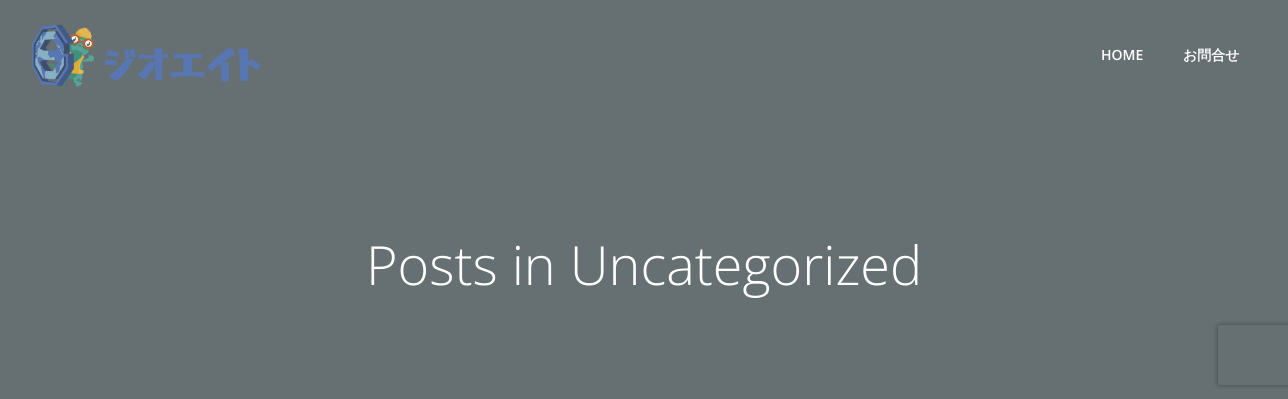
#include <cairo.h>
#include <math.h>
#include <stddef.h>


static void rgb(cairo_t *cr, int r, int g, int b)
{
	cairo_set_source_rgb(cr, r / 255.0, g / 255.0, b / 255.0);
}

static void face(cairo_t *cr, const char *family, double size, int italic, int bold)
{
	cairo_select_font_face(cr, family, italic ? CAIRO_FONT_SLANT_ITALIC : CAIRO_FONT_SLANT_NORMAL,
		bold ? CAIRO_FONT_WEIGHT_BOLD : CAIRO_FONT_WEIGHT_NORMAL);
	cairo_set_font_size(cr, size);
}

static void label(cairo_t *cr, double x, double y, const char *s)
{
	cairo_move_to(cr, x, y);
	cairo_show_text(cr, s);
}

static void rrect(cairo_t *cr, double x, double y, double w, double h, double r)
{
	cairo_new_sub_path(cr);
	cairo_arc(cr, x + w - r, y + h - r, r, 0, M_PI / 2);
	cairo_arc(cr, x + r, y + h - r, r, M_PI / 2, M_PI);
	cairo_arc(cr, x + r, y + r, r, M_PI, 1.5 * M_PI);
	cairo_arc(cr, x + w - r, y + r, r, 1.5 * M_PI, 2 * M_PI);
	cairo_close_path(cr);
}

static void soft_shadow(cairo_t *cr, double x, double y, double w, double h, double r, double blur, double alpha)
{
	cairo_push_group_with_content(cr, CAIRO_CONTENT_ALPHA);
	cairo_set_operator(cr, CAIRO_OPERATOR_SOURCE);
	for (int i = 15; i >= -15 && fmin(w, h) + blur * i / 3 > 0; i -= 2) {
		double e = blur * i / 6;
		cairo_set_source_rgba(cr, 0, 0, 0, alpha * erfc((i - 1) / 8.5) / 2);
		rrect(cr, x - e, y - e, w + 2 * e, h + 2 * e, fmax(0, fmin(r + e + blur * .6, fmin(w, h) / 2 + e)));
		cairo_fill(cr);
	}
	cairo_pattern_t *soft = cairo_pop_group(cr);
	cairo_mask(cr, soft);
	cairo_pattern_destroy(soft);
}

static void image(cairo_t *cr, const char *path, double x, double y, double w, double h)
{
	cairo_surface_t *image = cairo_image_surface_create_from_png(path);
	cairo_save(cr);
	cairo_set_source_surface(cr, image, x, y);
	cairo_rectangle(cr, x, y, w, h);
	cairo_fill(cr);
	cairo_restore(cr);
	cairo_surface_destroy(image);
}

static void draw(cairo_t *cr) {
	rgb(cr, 102, 111, 114);
	cairo_paint(cr);
	image(cr, "image0.png", 32, 24, 229, 63);
	face(cr, "Open Sans SemiBold", 14, 0, 0);
	rgb(cr, 255, 255, 255);
	label(cr, 1101, 60, "HOME");
	face(cr, "WenQuanYi Zen Hei", 14, 0, 1);
	label(cr, 1183, 60, "お問合せ");
	face(cr, "Open Sans Light", 54, 0, 0);
	label(cr, 366, 285, "Posts in Uncategorized");
	cairo_save(cr);
	cairo_set_fill_rule(cr, CAIRO_FILL_RULE_EVEN_ODD);
	cairo_new_path(cr);
	cairo_move_to(cr, 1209, 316);
	cairo_line_to(cr, 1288, 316);
	cairo_line_to(cr, 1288, 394);
	cairo_line_to(cr, 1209, 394);
	cairo_close_path(cr);
	cairo_move_to(cr, 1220, 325);
	cairo_line_to(cr, 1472, 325);
	cairo_curve_to(cr, 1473, 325, 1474, 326, 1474, 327);
	cairo_line_to(cr, 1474, 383);
	cairo_curve_to(cr, 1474, 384, 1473, 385, 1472, 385);
	cairo_line_to(cr, 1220, 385);
	cairo_curve_to(cr, 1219, 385, 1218, 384, 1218, 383);
	cairo_line_to(cr, 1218, 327);
	cairo_curve_to(cr, 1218, 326, 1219, 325, 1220, 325);
	cairo_close_path(cr);
	cairo_clip(cr);
	rgb(cr, 59, 68, 71);
	soft_shadow(cr, 1218, 325, 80, 60, 2, 2.5, 1);
	cairo_restore(cr);
}

int main(void) {
	cairo_surface_t *surface = cairo_image_surface_create(CAIRO_FORMAT_RGB24, 1288, 399);
	cairo_t *cr = cairo_create(surface);
	cairo_font_options_t *options = cairo_font_options_create();
	cairo_font_options_set_hint_metrics(options, CAIRO_HINT_METRICS_OFF);
	cairo_font_options_set_hint_style(options, CAIRO_HINT_STYLE_NONE);
	cairo_set_font_options(cr, options);
	cairo_set_miter_limit(cr, 4);
	draw(cr);
	cairo_surface_write_to_png(surface, "render.png");
	cairo_font_options_destroy(options);
	cairo_destroy(cr);
	cairo_surface_destroy(surface);
	return 0;
}
